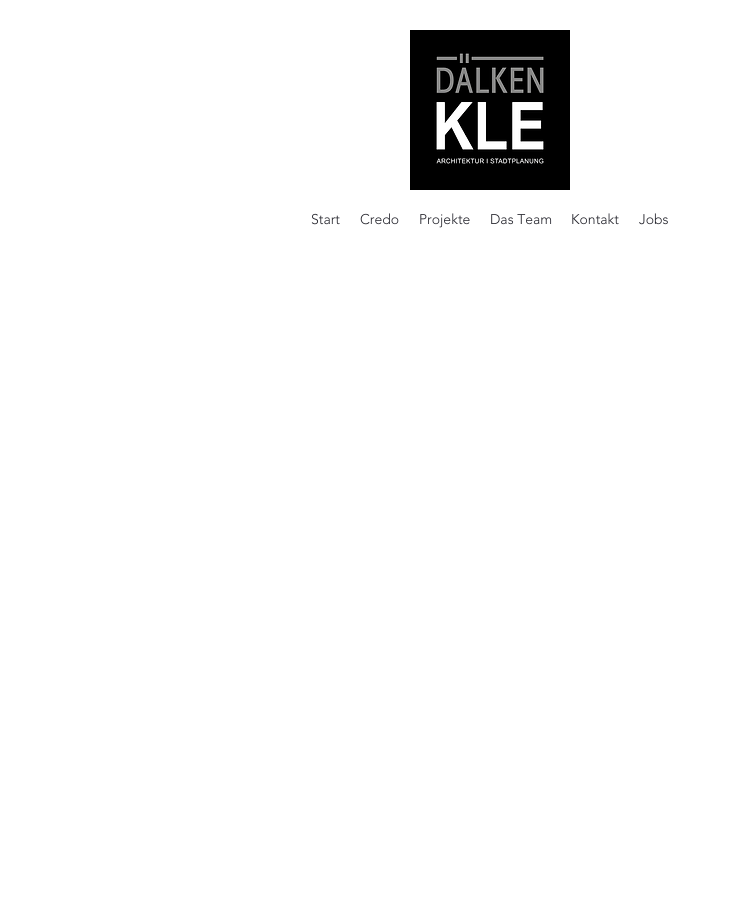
#include <cairo.h>
#include <math.h>
#include <stddef.h>


static void rgb(cairo_t *cr, int r, int g, int b)
{
	cairo_set_source_rgb(cr, r / 255.0, g / 255.0, b / 255.0);
}

static void face(cairo_t *cr, const char *family, double size, int italic, int bold)
{
	cairo_select_font_face(cr, family, italic ? CAIRO_FONT_SLANT_ITALIC : CAIRO_FONT_SLANT_NORMAL,
		bold ? CAIRO_FONT_WEIGHT_BOLD : CAIRO_FONT_WEIGHT_NORMAL);
	cairo_set_font_size(cr, size);
}

static void label(cairo_t *cr, double x, double y, const char *s)
{
	cairo_move_to(cr, x, y);
	cairo_show_text(cr, s);
}

static void image(cairo_t *cr, const char *path, double x, double y, double w, double h)
{
	cairo_surface_t *image = cairo_image_surface_create_from_png(path);
	cairo_save(cr);
	cairo_set_source_surface(cr, image, x, y);
	cairo_rectangle(cr, x, y, w, h);
	cairo_fill(cr);
	cairo_restore(cr);
	cairo_surface_destroy(image);
}

static void draw(cairo_t *cr) {
	rgb(cr, 255, 255, 255);
	cairo_paint(cr);
	image(cr, "image0.png", 410, 30, 160, 160);
	face(cr, "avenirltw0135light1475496 Light", 14, 0, 0);
	rgb(cr, 36, 36, 44);
	label(cr, 311, 224, "Start");
	label(cr, 360, 224, "Credo");
	label(cr, 419, 224, "Projekte");
	label(cr, 490, 224, "Das Team");
	label(cr, 571, 224, "Kontakt");
	label(cr, 639, 224, "Jobs");
}

int main(void) {
	cairo_surface_t *surface = cairo_image_surface_create(CAIRO_FORMAT_RGB24, 748, 914);
	cairo_t *cr = cairo_create(surface);
	cairo_font_options_t *options = cairo_font_options_create();
	cairo_font_options_set_hint_metrics(options, CAIRO_HINT_METRICS_OFF);
	cairo_font_options_set_hint_style(options, CAIRO_HINT_STYLE_NONE);
	cairo_set_font_options(cr, options);
	cairo_set_miter_limit(cr, 4);
	draw(cr);
	cairo_surface_write_to_png(surface, "render.png");
	cairo_font_options_destroy(options);
	cairo_destroy(cr);
	cairo_surface_destroy(surface);
	return 0;
}
